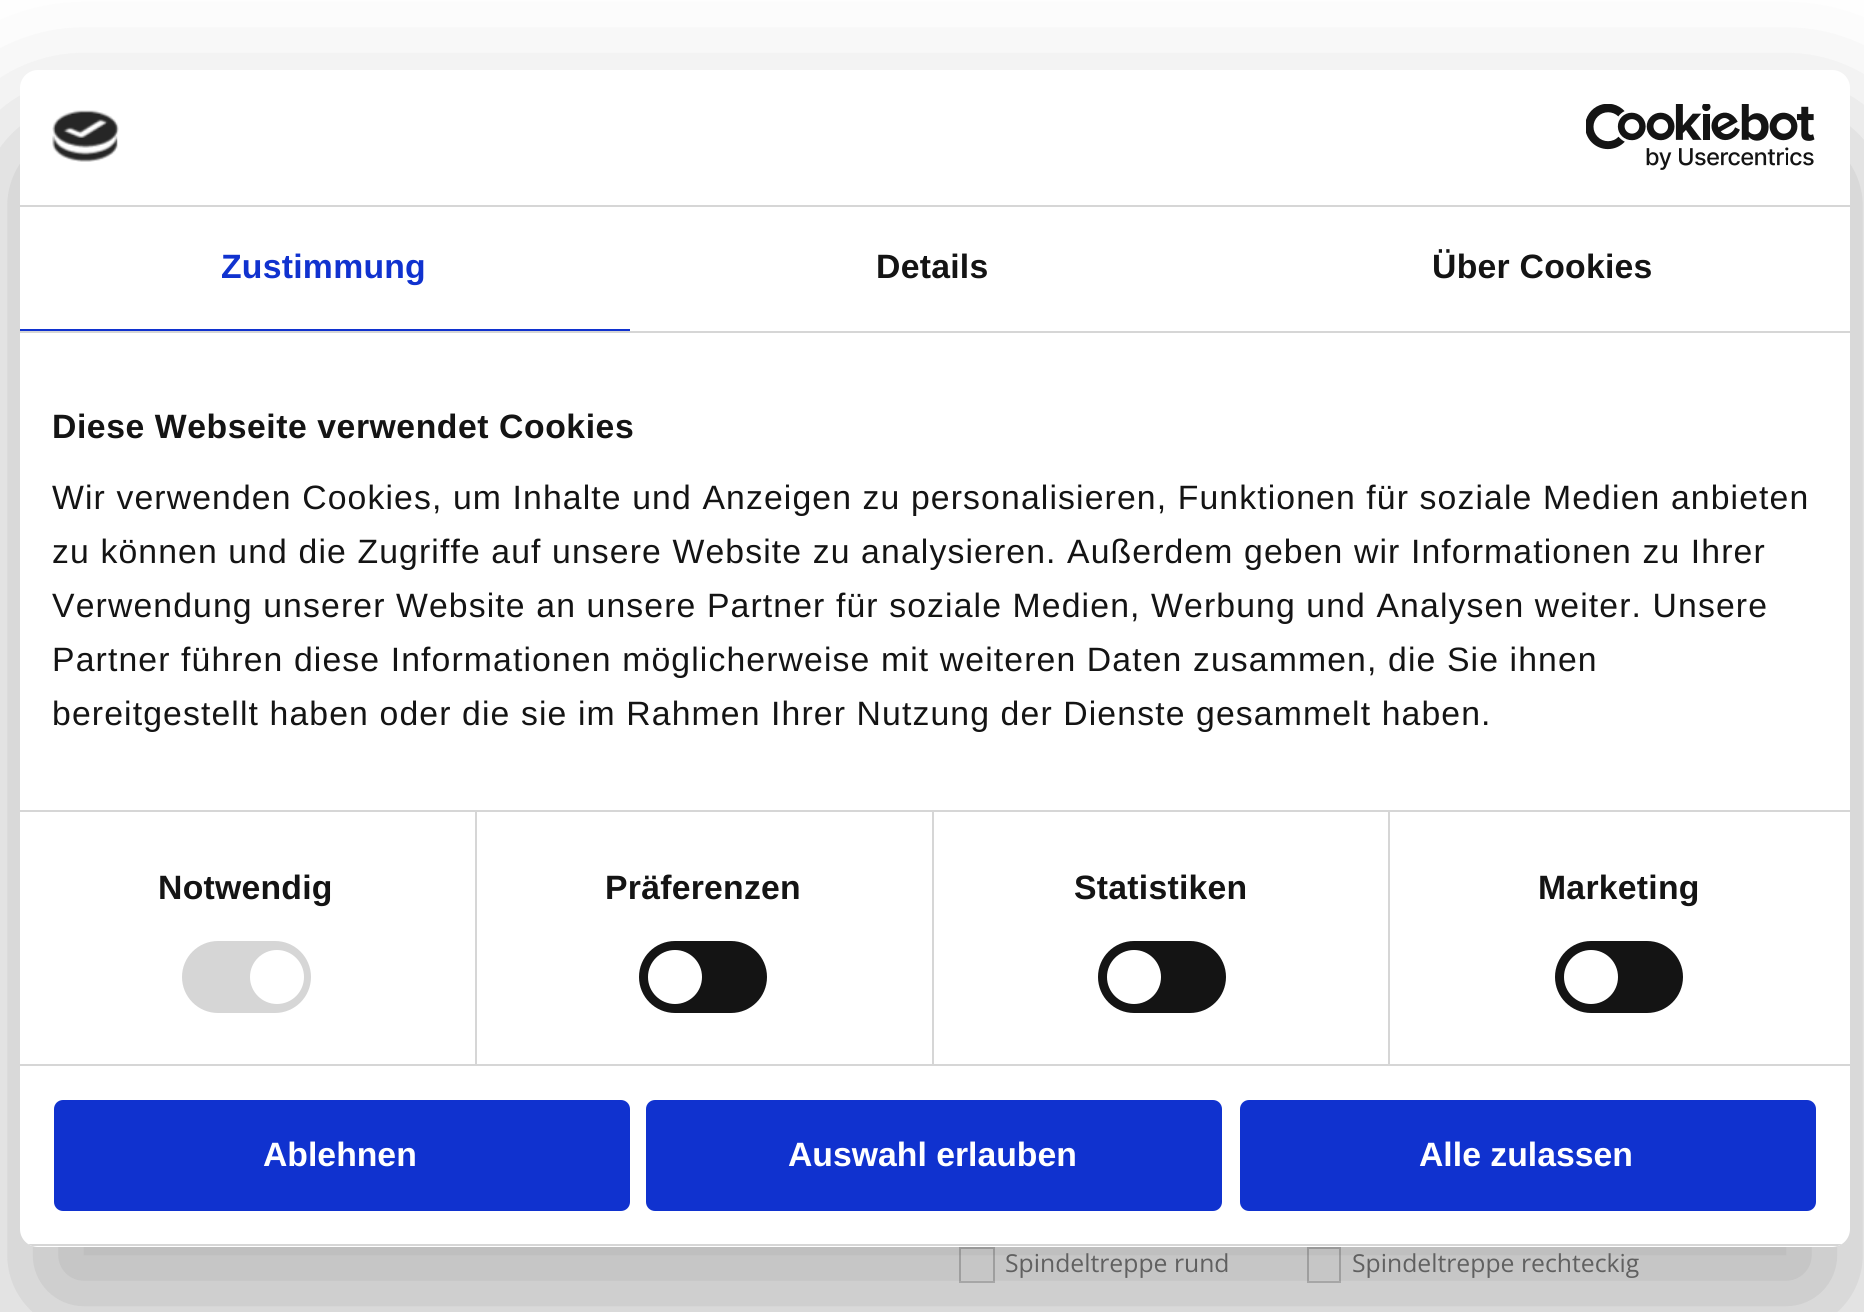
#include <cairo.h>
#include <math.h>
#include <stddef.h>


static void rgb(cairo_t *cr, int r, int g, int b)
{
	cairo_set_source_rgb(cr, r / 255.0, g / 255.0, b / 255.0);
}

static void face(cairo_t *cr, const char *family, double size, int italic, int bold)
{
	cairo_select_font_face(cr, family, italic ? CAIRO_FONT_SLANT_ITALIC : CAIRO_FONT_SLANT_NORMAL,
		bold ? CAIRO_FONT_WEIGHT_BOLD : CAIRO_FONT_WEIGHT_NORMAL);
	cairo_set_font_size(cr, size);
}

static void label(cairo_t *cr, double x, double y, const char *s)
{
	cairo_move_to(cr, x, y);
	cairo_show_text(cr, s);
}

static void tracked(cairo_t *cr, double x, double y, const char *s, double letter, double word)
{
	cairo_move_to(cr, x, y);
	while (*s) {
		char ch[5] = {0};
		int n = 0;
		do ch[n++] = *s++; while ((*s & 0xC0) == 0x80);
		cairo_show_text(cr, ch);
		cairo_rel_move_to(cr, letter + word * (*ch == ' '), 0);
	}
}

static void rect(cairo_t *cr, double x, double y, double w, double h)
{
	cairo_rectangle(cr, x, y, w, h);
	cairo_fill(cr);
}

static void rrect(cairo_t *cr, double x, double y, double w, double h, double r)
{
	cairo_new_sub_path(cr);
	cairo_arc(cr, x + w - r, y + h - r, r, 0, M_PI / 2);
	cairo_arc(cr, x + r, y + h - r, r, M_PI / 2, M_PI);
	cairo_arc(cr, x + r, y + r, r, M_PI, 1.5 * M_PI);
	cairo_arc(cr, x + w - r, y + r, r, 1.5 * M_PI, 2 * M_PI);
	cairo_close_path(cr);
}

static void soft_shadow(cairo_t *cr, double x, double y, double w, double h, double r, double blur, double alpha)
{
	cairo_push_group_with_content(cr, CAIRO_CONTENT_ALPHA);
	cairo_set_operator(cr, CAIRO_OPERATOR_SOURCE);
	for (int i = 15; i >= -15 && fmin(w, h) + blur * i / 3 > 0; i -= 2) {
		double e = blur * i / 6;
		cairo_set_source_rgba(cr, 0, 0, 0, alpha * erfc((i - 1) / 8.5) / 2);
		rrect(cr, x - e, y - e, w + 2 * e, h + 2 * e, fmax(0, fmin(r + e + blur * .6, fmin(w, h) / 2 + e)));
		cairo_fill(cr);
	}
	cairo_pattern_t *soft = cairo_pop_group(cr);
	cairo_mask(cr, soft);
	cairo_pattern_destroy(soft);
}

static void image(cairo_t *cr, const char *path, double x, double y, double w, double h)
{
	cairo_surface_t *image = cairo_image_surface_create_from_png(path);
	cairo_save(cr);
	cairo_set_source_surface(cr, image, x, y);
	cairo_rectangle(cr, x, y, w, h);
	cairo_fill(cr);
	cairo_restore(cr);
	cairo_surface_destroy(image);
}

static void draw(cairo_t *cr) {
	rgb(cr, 255, 255, 255);
	cairo_paint(cr);
	cairo_rectangle(cr, 960, 1248, 34, 34);
	rgb(cr, 204, 204, 204);
	cairo_stroke(cr);
	cairo_rectangle(cr, 1308, 1248, 32, 34);
	cairo_stroke(cr);
	rgb(cr, 0, 0, 0);
	soft_shadow(cr, 20, 142, 1830, 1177, 18, 76.5, 0.3);
	rgb(cr, 255, 255, 255);
	rrect(cr, 20, 70, 1830, 1177, 18);
	cairo_fill(cr);
	rgb(cr, 214, 214, 214);
	rect(cr, 20, 205, 1830, 2);
	image(cr, "image0.png", 52, 110, 67, 52);
	image(cr, "image1.png", 1586, 104, 229, 66);
	rect(cr, 20, 331, 1830, 2);
	rgb(cr, 16, 50, 207);
	rect(cr, 20, 329, 610, 2);
	face(cr, "Liberation Sans", 33.75, 0, 1);
	tracked(cr, 221, 278, "Zustimmung", 0.25, 0);
	rgb(cr, 20, 20, 20);
	tracked(cr, 876, 278, "Details", 0.25, 0);
	tracked(cr, 1432, 278, "Über Cookies", 0.25, 0);
	rgb(cr, 214, 214, 214);
	rect(cr, 20, 810, 1830, 2);
	rgb(cr, 20, 20, 20);
	tracked(cr, 52, 438, "Diese Webseite verwendet Cookies", 0.55, 0);
	face(cr, "Liberation Sans", 33.75, 0, 0);
	tracked(cr, 52, 509, "Wir verwenden Cookies, um Inhalte und Anzeigen zu personalisieren, Funktionen für soziale Medien anbieten", 1.12, 0);
	tracked(cr, 52, 563, "zu können und die Zugriffe auf unsere Website zu analysieren. Außerdem geben wir Informationen zu Ihrer", 1.12, 0);
	tracked(cr, 52, 617, "Verwendung unserer Website an unsere Partner für soziale Medien, Werbung und Analysen weiter. Unsere", 1.12, 0);
	tracked(cr, 52, 671, "Partner führen diese Informationen möglicherweise mit weiteren Daten zusammen, die Sie ihnen", 1.12, 0);
	tracked(cr, 52, 725, "bereitgestellt haben oder die sie im Rahmen Ihrer Nutzung der Dienste gesammelt haben.", 1.12, 0);
	rgb(cr, 214, 214, 214);
	rect(cr, 20, 1064, 1830, 2);
	rect(cr, 475, 812, 2, 252);
	face(cr, "Liberation Sans", 33.75, 0, 1);
	rgb(cr, 20, 20, 20);
	tracked(cr, 158, 899, "Notwendig", 0.25, 0);
	rgb(cr, 214, 214, 214);
	rrect(cr, 182, 941, 129, 72, 36);
	cairo_fill(cr);
	rgb(cr, 255, 255, 255);
	cairo_arc(cr, 277, 977, 27, 0, 2 * M_PI);
	cairo_fill(cr);
	rgb(cr, 214, 214, 214);
	rect(cr, 932, 812, 2, 252);
	rgb(cr, 20, 20, 20);
	tracked(cr, 605, 899, "Präferenzen", 0.25, 0);
	rrect(cr, 639, 941, 128, 72, 36);
	cairo_fill(cr);
	rgb(cr, 255, 255, 255);
	cairo_arc(cr, 675, 977, 27, 0, 2 * M_PI);
	cairo_fill(cr);
	rgb(cr, 214, 214, 214);
	rect(cr, 1388, 812, 2, 252);
	rgb(cr, 20, 20, 20);
	tracked(cr, 1074, 899, "Statistiken", 0.25, 0);
	rrect(cr, 1098, 941, 128, 72, 36);
	cairo_fill(cr);
	rgb(cr, 255, 255, 255);
	cairo_arc(cr, 1134, 977, 27, 0, 2 * M_PI);
	cairo_fill(cr);
	rgb(cr, 20, 20, 20);
	tracked(cr, 1538, 899, "Marketing", 0.25, 0);
	rrect(cr, 1555, 941, 128, 72, 36);
	cairo_fill(cr);
	rgb(cr, 255, 255, 255);
	cairo_arc(cr, 1591, 977, 27, 0, 2 * M_PI);
	cairo_fill(cr);
	cairo_save(cr);
	rrect(cr, 20, 70, 1830, 1177, 18);
	cairo_clip(cr);
	rgb(cr, 214, 214, 214);
	rect(cr, 20, 1244, 1830, 2);
	cairo_restore(cr);
	rgb(cr, 16, 50, 207);
	rrect(cr, 56.5, 1102.5, 571, 106, 6.5);
	cairo_fill_preserve(cr);
	cairo_set_line_width(cr, 5);
	cairo_stroke(cr);
	rgb(cr, 255, 255, 255);
	label(cr, 263, 1166, "Ablehnen");
	rgb(cr, 16, 50, 207);
	rrect(cr, 648.5, 1102.5, 571, 106, 6.5);
	cairo_fill_preserve(cr);
	cairo_stroke(cr);
	rgb(cr, 255, 255, 255);
	label(cr, 788, 1166, "Auswahl erlauben");
	rgb(cr, 16, 50, 207);
	rrect(cr, 1242.5, 1102.5, 571, 106, 6.5);
	cairo_fill_preserve(cr);
	cairo_stroke(cr);
	rgb(cr, 255, 255, 255);
	label(cr, 1419, 1166, "Alle zulassen");
	face(cr, "Open Sans", 24.75, 0, 0);
	rgb(cr, 96, 96, 96);
	label(cr, 1005, 1272, "Spindeltreppe rund");
	label(cr, 1352, 1272, "Spindeltreppe rechteckig");
}

int main(void) {
	cairo_surface_t *surface = cairo_image_surface_create(CAIRO_FORMAT_RGB24, 1864, 1312);
	cairo_t *cr = cairo_create(surface);
	cairo_font_options_t *options = cairo_font_options_create();
	cairo_font_options_set_hint_metrics(options, CAIRO_HINT_METRICS_OFF);
	cairo_font_options_set_hint_style(options, CAIRO_HINT_STYLE_NONE);
	cairo_set_font_options(cr, options);
	cairo_set_miter_limit(cr, 4);
	draw(cr);
	cairo_surface_write_to_png(surface, "render.png");
	cairo_font_options_destroy(options);
	cairo_destroy(cr);
	cairo_surface_destroy(surface);
	return 0;
}
